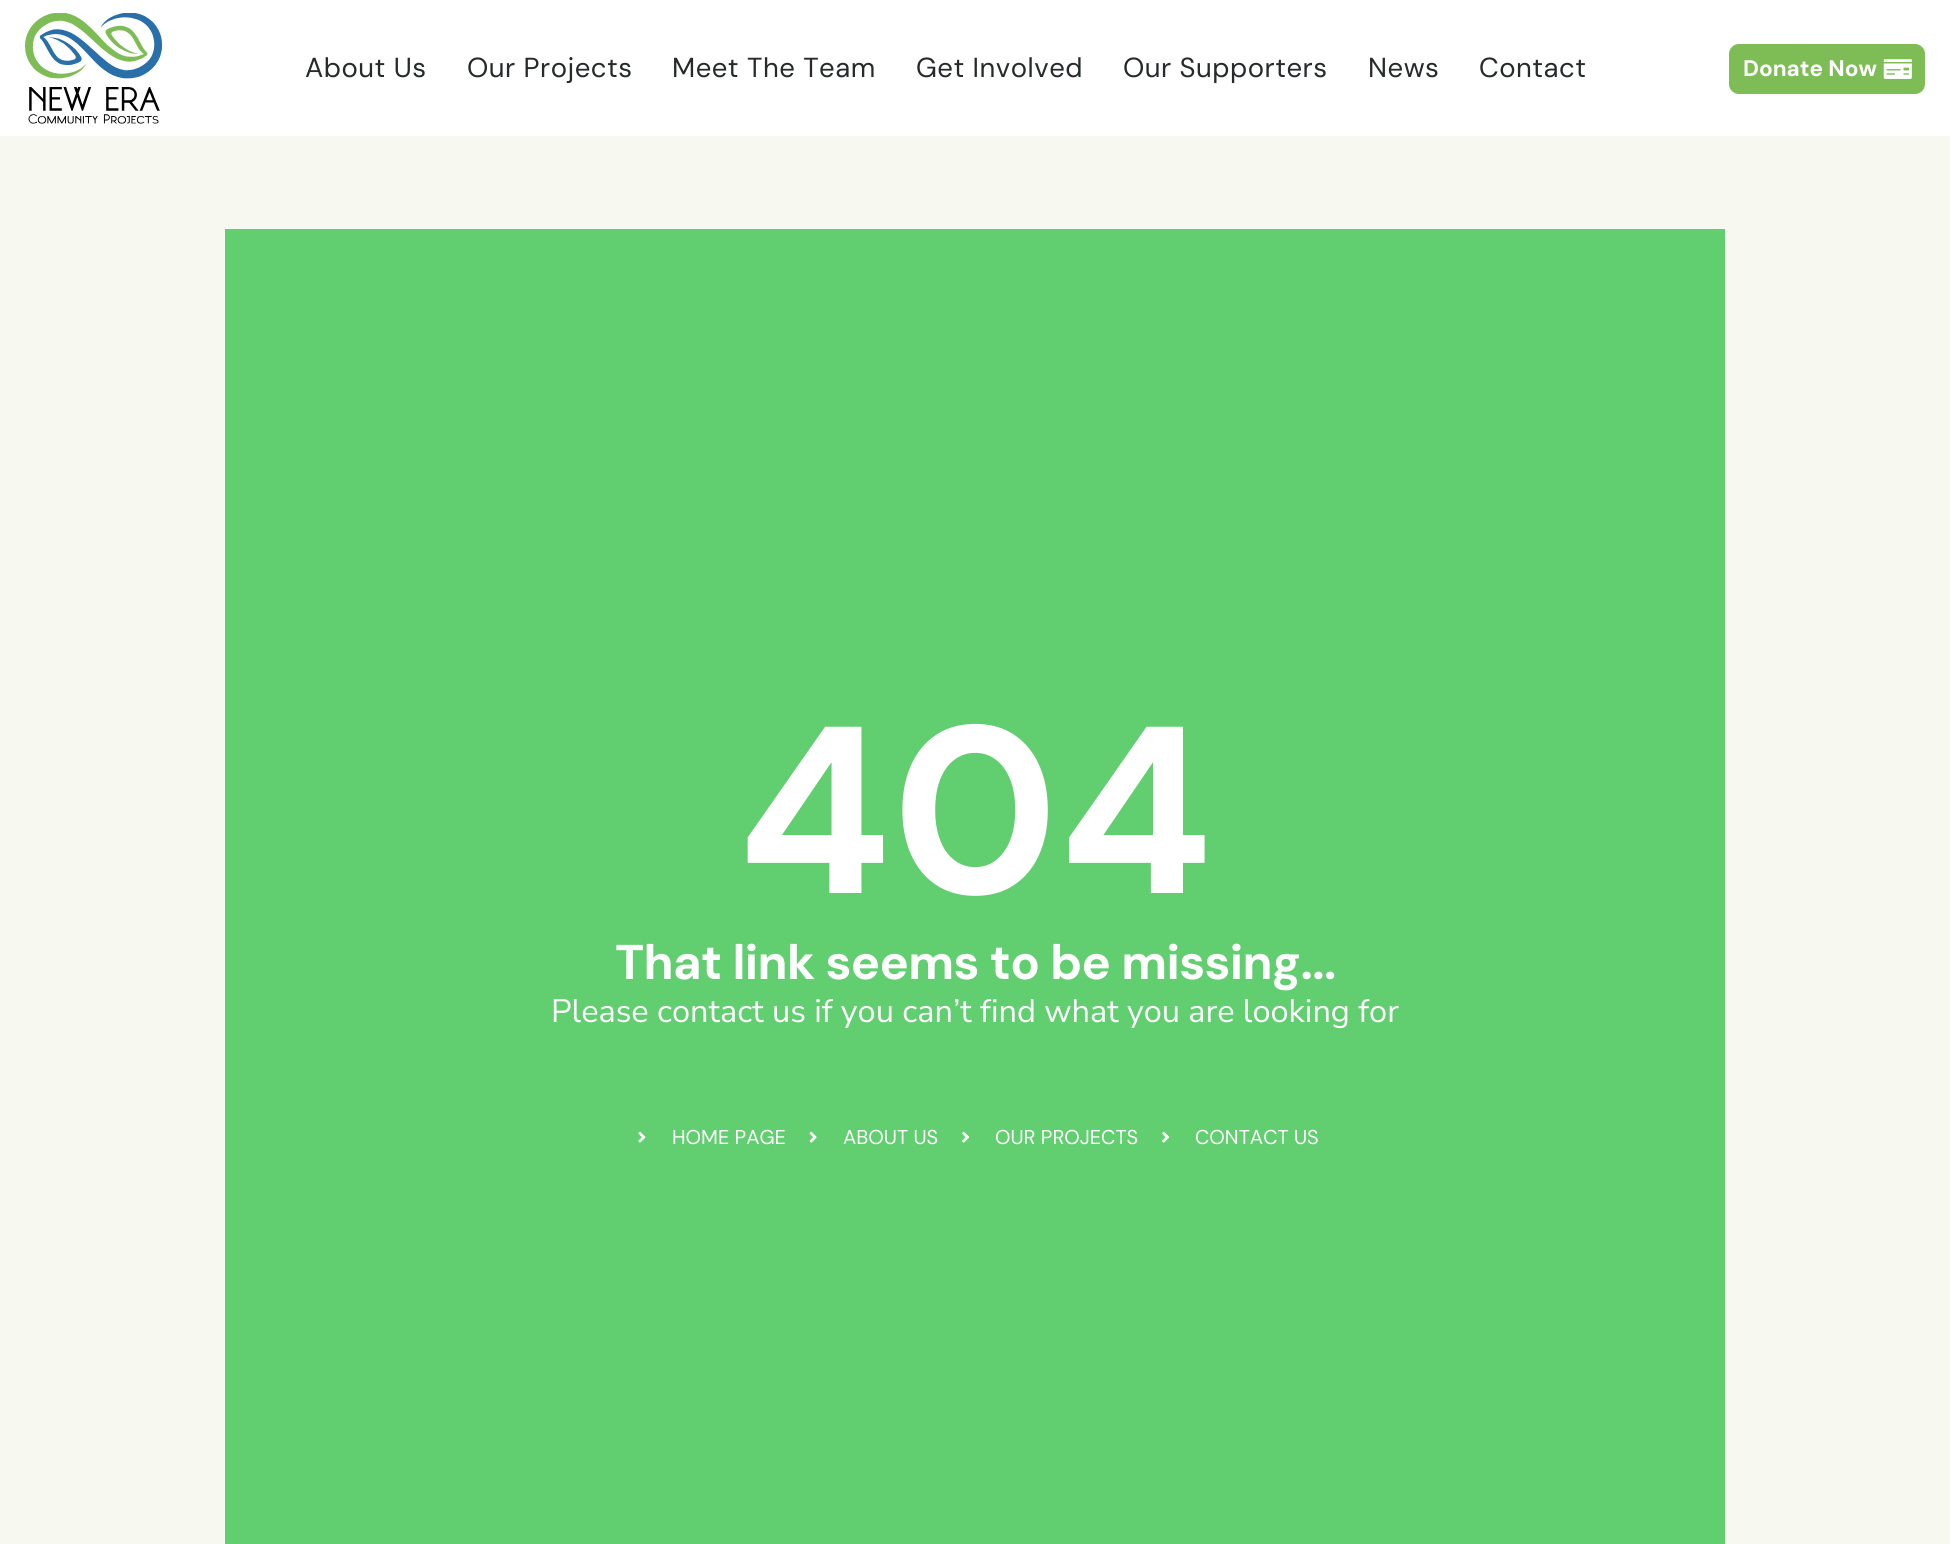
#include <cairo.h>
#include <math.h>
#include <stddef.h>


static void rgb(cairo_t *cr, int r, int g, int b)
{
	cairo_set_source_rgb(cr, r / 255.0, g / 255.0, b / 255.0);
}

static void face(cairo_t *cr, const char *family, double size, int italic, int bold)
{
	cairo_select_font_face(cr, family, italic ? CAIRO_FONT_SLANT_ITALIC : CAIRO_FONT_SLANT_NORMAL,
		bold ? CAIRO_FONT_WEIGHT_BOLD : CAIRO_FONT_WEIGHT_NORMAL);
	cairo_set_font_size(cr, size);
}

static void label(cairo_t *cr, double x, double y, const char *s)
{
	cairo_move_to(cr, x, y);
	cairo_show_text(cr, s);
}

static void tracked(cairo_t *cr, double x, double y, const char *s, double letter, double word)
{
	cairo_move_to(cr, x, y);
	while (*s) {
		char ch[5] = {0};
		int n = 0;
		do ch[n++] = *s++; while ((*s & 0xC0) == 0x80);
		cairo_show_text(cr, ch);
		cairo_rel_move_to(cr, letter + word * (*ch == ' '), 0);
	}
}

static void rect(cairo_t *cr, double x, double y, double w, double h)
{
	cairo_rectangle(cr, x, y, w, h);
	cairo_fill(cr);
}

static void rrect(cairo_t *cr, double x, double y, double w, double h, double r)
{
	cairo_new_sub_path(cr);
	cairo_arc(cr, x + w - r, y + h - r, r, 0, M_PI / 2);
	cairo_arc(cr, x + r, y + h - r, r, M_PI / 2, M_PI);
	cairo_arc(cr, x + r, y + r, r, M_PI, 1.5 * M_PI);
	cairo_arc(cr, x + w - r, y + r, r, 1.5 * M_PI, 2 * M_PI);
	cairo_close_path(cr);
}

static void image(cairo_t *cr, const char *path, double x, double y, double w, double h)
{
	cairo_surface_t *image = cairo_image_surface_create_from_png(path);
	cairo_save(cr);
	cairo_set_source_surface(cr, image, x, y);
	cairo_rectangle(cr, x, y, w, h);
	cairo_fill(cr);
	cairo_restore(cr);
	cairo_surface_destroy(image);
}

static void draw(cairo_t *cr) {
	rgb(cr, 247, 249, 241);
	cairo_paint(cr);
	rgb(cr, 255, 255, 255);
	rect(cr, 0, 0, 1950, 136);
	image(cr, "image0.png", 25, 13, 138, 111);
	face(cr, "DM Sans", 27.5, 0, 0);
	rgb(cr, 38, 42, 43);
	tracked(cr, 305, 77, "About Us", 0.5, 0);
	tracked(cr, 467, 77, "Our Projects", 0.5, 0);
	tracked(cr, 672, 77, "Meet The Team", 0.5, 0);
	tracked(cr, 916, 77, "Get Involved", 0.5, 0);
	tracked(cr, 1123, 77, "Our Supporters", 0.5, 0);
	tracked(cr, 1368, 77, "News", 0.5, 0);
	tracked(cr, 1479, 77, "Contact", 0.5, 0);
	rgb(cr, 126, 189, 86);
	rrect(cr, 1729.5, 44.5, 195, 49, 9.5);
	cairo_fill_preserve(cr);
	cairo_set_line_width(cr, 1);
	cairo_stroke(cr);
	face(cr, "DM Sans", 22.5, 0, 1);
	rgb(cr, 255, 255, 255);
	label(cr, 1743, 76, "Donate Now");
	image(cr, "image1.png", 1883, 59, 29, 20);
	rgb(cr, 97, 206, 112);
	rect(cr, 225, 229, 1500, 1315);
	face(cr, "DM Sans", 237.5, 0, 1);
	rgb(cr, 255, 255, 255);
	label(cr, 737, 893, "404");
	face(cr, "DM Sans", 48.75, 0, 1);
	tracked(cr, 615, 979, "That link seems to be missing...", -0.6, 0);
	face(cr, "Nunito Sans", 32.5, 0, 0);
	label(cr, 551, 1022, "Please contact us if you can’t find what you are looking for");
	image(cr, "image2.png", 638, 1131, 8, 12);
	face(cr, "DM Sans", 20, 0, 0);
	label(cr, 672, 1144, "HOME PAGE");
	image(cr, "image3.png", 809, 1131, 8, 12);
	label(cr, 843, 1144, "ABOUT US");
	image(cr, "image4.png", 962, 1131, 8, 12);
	label(cr, 995, 1144, "OUR PROJECTS");
	image(cr, "image4.png", 1162, 1131, 8, 12);
	label(cr, 1195, 1144, "CONTACT US");
}

int main(void) {
	cairo_surface_t *surface = cairo_image_surface_create(CAIRO_FORMAT_RGB24, 1950, 1544);
	cairo_t *cr = cairo_create(surface);
	cairo_font_options_t *options = cairo_font_options_create();
	cairo_font_options_set_hint_metrics(options, CAIRO_HINT_METRICS_OFF);
	cairo_font_options_set_hint_style(options, CAIRO_HINT_STYLE_NONE);
	cairo_set_font_options(cr, options);
	cairo_set_miter_limit(cr, 4);
	draw(cr);
	cairo_surface_write_to_png(surface, "render.png");
	cairo_font_options_destroy(options);
	cairo_destroy(cr);
	cairo_surface_destroy(surface);
	return 0;
}
